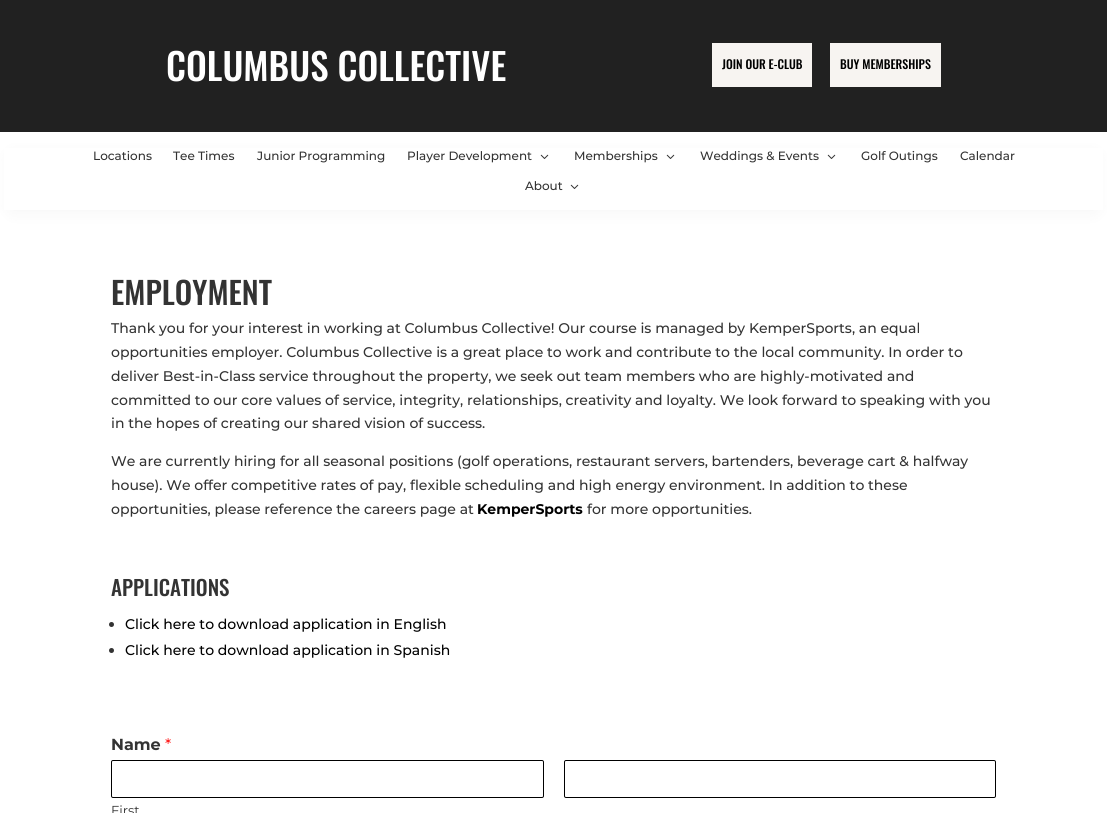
#include <cairo.h>
#include <math.h>
#include <stddef.h>


static void rgb(cairo_t *cr, int r, int g, int b)
{
	cairo_set_source_rgb(cr, r / 255.0, g / 255.0, b / 255.0);
}

static void face(cairo_t *cr, const char *family, double size, int italic, int bold)
{
	cairo_select_font_face(cr, family, italic ? CAIRO_FONT_SLANT_ITALIC : CAIRO_FONT_SLANT_NORMAL,
		bold ? CAIRO_FONT_WEIGHT_BOLD : CAIRO_FONT_WEIGHT_NORMAL);
	cairo_set_font_size(cr, size);
}

static void label(cairo_t *cr, double x, double y, const char *s)
{
	cairo_move_to(cr, x, y);
	cairo_show_text(cr, s);
}

static void rect(cairo_t *cr, double x, double y, double w, double h)
{
	cairo_rectangle(cr, x, y, w, h);
	cairo_fill(cr);
}

static void rrect(cairo_t *cr, double x, double y, double w, double h, double r)
{
	cairo_new_sub_path(cr);
	cairo_arc(cr, x + w - r, y + h - r, r, 0, M_PI / 2);
	cairo_arc(cr, x + r, y + h - r, r, M_PI / 2, M_PI);
	cairo_arc(cr, x + r, y + r, r, M_PI, 1.5 * M_PI);
	cairo_arc(cr, x + w - r, y + r, r, 1.5 * M_PI, 2 * M_PI);
	cairo_close_path(cr);
}

static void soft_shadow(cairo_t *cr, double x, double y, double w, double h, double r, double blur, double alpha)
{
	cairo_push_group_with_content(cr, CAIRO_CONTENT_ALPHA);
	cairo_set_operator(cr, CAIRO_OPERATOR_SOURCE);
	for (int i = 15; i >= -15 && fmin(w, h) + blur * i / 3 > 0; i -= 2) {
		double e = blur * i / 6;
		cairo_set_source_rgba(cr, 0, 0, 0, alpha * erfc((i - 1) / 8.5) / 2);
		rrect(cr, x - e, y - e, w + 2 * e, h + 2 * e, fmax(0, fmin(r + e + blur * .6, fmin(w, h) / 2 + e)));
		cairo_fill(cr);
	}
	cairo_pattern_t *soft = cairo_pop_group(cr);
	cairo_mask(cr, soft);
	cairo_pattern_destroy(soft);
}

static void image(cairo_t *cr, const char *path, double x, double y, double w, double h)
{
	cairo_surface_t *image = cairo_image_surface_create_from_png(path);
	cairo_save(cr);
	cairo_set_source_surface(cr, image, x, y);
	cairo_rectangle(cr, x, y, w, h);
	cairo_fill(cr);
	cairo_restore(cr);
	cairo_surface_destroy(image);
}

static void draw(cairo_t *cr) {
	rgb(cr, 255, 255, 255);
	cairo_paint(cr);
	rgb(cr, 33, 33, 33);
	rect(cr, 0, 0, 1107, 132);
	face(cr, "Oswald Medium", 37, 0, 0);
	rgb(cr, 255, 255, 255);
	label(cr, 166, 81, "COLUMBUS COLLECTIVE");
	rgb(cr, 247, 244, 241);
	rect(cr, 712, 43, 100, 44);
	face(cr, "Oswald Medium", 12, 0, 0);
	rgb(cr, 0, 0, 0);
	label(cr, 722, 69, "JOIN OUR E-CLUB");
	rgb(cr, 247, 244, 241);
	rect(cr, 830, 43, 111, 44);
	rgb(cr, 0, 0, 0);
	label(cr, 840, 69, "BUY MEMBERSHIPS");
	rgb(cr, 0, 0, 0);
	soft_shadow(cr, 12, 156, 1083, 54, 0, 9, 0.05);
	rgb(cr, 255, 255, 255);
	rect(cr, 4, 148, 1099, 62);
	face(cr, "Montserrat Medium", 12, 0, 0);
	rgb(cr, 51, 51, 51);
	label(cr, 93, 160, "Locations");
	label(cr, 173, 160, "Tee Times");
	label(cr, 257, 160, "Junior Programming");
	label(cr, 407, 160, "Player Development");
	image(cr, "image0.png", 540, 154, 9, 5);
	label(cr, 574, 160, "Memberships");
	image(cr, "image0.png", 666, 154, 9, 5);
	label(cr, 700, 160, "Weddings & Events");
	image(cr, "image0.png", 827, 154, 9, 5);
	label(cr, 861, 160, "Golf Outings");
	label(cr, 960, 160, "Calendar");
	label(cr, 525, 190, "About");
	image(cr, "image0.png", 570, 184, 9, 5);
	face(cr, "Oswald Medium", 31, 0, 0);
	label(cr, 111, 305, "EMPLOYMENT");
	face(cr, "Montserrat Medium", 14, 0, 0);
	label(cr, 111, 333, "Thank you for your interest in working at Columbus Collective! Our course is managed by KemperSports, an equal");
	label(cr, 111, 357, "opportunities employer. Columbus Collective is a great place to work and contribute to the local community. In order to");
	label(cr, 111, 381, "deliver Best-in-Class service throughout the property, we seek out team members who are highly-motivated and");
	label(cr, 111, 405, "committed to our core values of service, integrity, relationships, creativity and loyalty. We look forward to speaking with you");
	label(cr, 111, 428, "in the hopes of creating our shared vision of success.");
	label(cr, 111, 466, "We are currently hiring for all seasonal positions (golf operations, restaurant servers, bartenders, beverage cart & halfway");
	label(cr, 111, 490, "house). We offer competitive rates of pay, flexible scheduling and high energy environment. In addition to these");
	label(cr, 111, 514, "opportunities, please reference the careers page at");
	face(cr, "Montserrat", 14, 0, 1);
	rgb(cr, 0, 0, 0);
	label(cr, 477, 514, "KemperSports");
	face(cr, "Montserrat Medium", 14, 0, 0);
	rgb(cr, 51, 51, 51);
	label(cr, 587, 514, "for more opportunities.");
	face(cr, "Oswald Medium", 21, 0, 0);
	label(cr, 111, 596, "APPLICATIONS");
	cairo_new_path(cr);
	cairo_arc(cr, 111.5, 624.5, 2.5, 0, 2 * M_PI);
	cairo_fill(cr);
	face(cr, "Montserrat Medium", 14, 0, 0);
	rgb(cr, 0, 0, 0);
	label(cr, 125, 629, "Click here to download application in English");
	rgb(cr, 51, 51, 51);
	cairo_new_path(cr);
	cairo_arc(cr, 111.5, 650.5, 2.5, 0, 2 * M_PI);
	cairo_fill(cr);
	rgb(cr, 0, 0, 0);
	label(cr, 125, 655, "Click here to download application in Spanish");
	face(cr, "Montserrat", 16, 0, 1);
	rgb(cr, 51, 51, 51);
	label(cr, 111, 750, "Name");
	face(cr, "Montserrat", 16, 0, 0);
	rgb(cr, 255, 0, 0);
	label(cr, 165, 750, "*");
	rrect(cr, 564.5, 760.5, 431, 37, 1.5);
	rgb(cr, 0, 0, 0);
	cairo_set_line_width(cr, 1);
	cairo_stroke(cr);
	rrect(cr, 111.5, 760.5, 432, 37, 1.5);
	cairo_stroke(cr);
	face(cr, "Montserrat", 13, 0, 0);
	rgb(cr, 51, 51, 51);
	label(cr, 111, 815, "First");
}

int main(void) {
	cairo_surface_t *surface = cairo_image_surface_create(CAIRO_FORMAT_RGB24, 1107, 813);
	cairo_t *cr = cairo_create(surface);
	cairo_font_options_t *options = cairo_font_options_create();
	cairo_font_options_set_hint_metrics(options, CAIRO_HINT_METRICS_OFF);
	cairo_font_options_set_hint_style(options, CAIRO_HINT_STYLE_NONE);
	cairo_set_font_options(cr, options);
	cairo_set_miter_limit(cr, 4);
	draw(cr);
	cairo_surface_write_to_png(surface, "render.png");
	cairo_font_options_destroy(options);
	cairo_destroy(cr);
	cairo_surface_destroy(surface);
	return 0;
}
